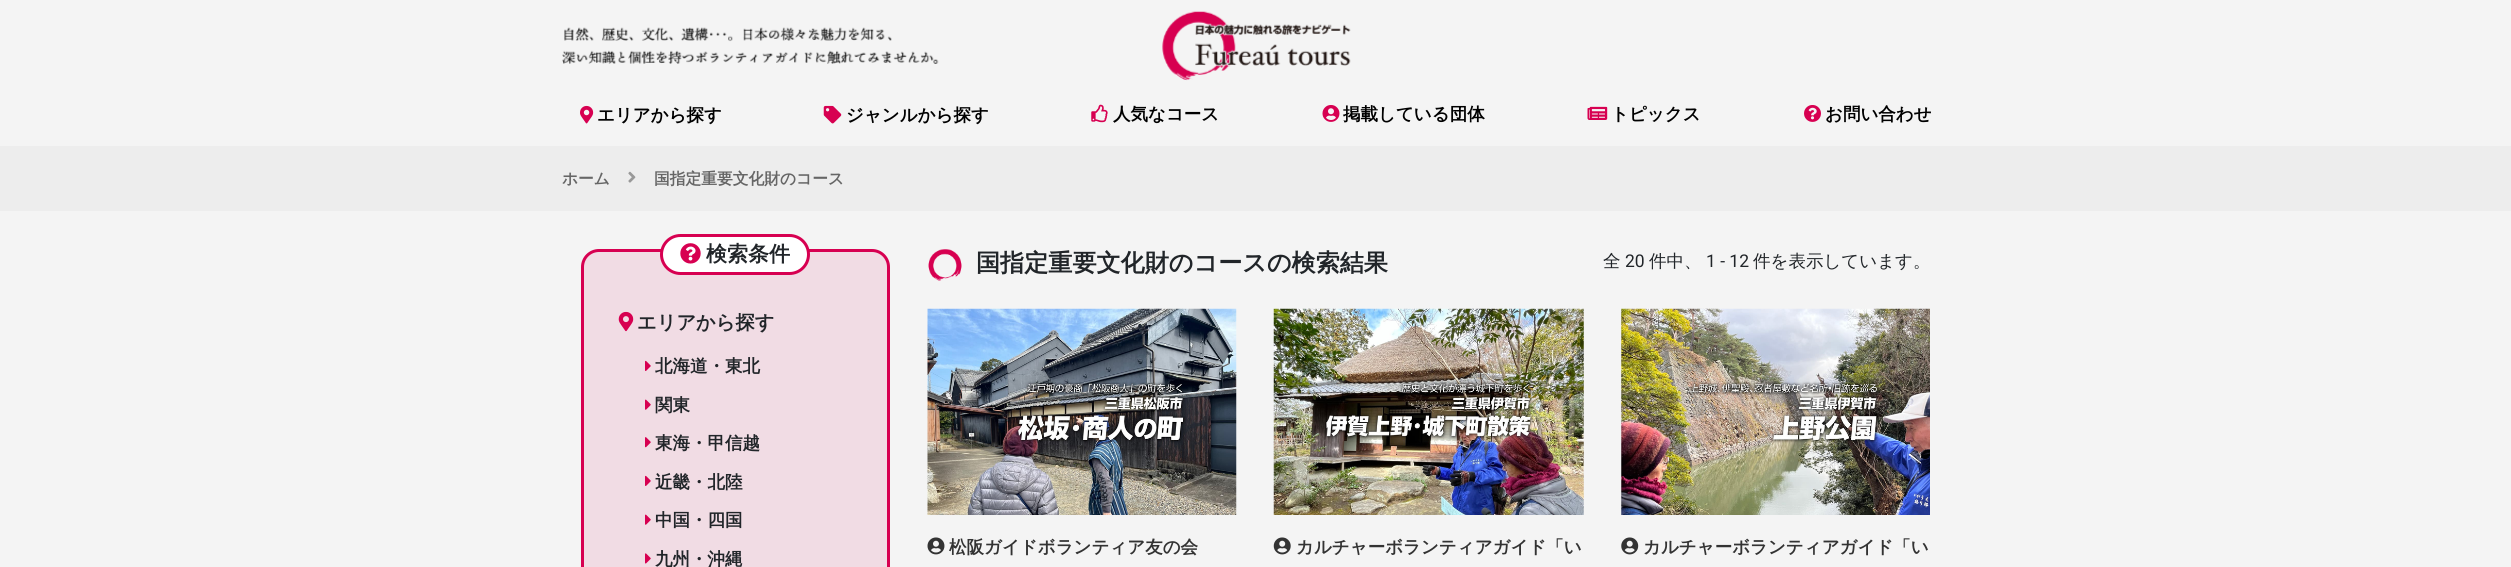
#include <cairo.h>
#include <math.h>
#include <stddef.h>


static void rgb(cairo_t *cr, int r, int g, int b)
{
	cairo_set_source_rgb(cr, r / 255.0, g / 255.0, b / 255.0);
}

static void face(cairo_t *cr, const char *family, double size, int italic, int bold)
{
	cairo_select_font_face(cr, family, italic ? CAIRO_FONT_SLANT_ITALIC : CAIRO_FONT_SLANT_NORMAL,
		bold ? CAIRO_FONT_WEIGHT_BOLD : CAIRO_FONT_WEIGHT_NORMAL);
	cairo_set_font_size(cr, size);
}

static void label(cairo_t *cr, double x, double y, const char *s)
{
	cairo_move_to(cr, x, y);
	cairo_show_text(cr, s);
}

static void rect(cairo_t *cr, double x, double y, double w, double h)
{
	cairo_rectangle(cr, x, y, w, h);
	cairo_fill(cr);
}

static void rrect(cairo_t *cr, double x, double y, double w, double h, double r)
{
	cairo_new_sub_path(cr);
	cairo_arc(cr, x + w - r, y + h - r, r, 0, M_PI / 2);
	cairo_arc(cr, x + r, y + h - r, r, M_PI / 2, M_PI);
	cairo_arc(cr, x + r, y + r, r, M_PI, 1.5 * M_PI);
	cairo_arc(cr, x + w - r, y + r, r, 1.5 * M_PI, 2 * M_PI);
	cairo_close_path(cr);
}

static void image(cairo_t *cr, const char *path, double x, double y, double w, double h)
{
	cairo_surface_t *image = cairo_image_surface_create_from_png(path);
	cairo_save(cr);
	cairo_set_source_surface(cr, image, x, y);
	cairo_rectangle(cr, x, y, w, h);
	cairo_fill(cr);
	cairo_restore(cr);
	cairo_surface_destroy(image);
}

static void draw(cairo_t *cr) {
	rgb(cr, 244, 244, 244);
	cairo_paint(cr);
	image(cr, "image0.png", 562, 27, 377, 37);
	image(cr, "image1.png", 1162, 11, 189, 70);
	image(cr, "image2.png", 580, 105, 14, 19);
	face(cr, "WenQuanYi Zen Hei", 17.5, 0, 1);
	rgb(cr, 0, 0, 0);
	label(cr, 597, 121, "エリアから探す");
	image(cr, "image3.png", 823, 105, 19, 19);
	label(cr, 846, 121, "ジャンルから探す");
	image(cr, "image4.png", 1091, 104, 17, 19);
	label(cr, 1113, 120, "人気なコース");
	image(cr, "image5.png", 1322, 105, 18, 17);
	label(cr, 1343, 120, "掲載している団体");
	image(cr, "image6.png", 1587, 106, 21, 14);
	label(cr, 1611, 120, "トピックス");
	image(cr, "image7.png", 1804, 105, 17, 17);
	label(cr, 1825, 120, "お問い合わせ");
	rgb(cr, 237, 237, 237);
	rect(cr, 0, 146, 2511, 65);
	face(cr, "WenQuanYi Zen Hei", 15.75, 0, 1);
	rgb(cr, 102, 102, 102);
	label(cr, 562, 184, "ホーム");
	image(cr, "image8.png", 628, 171, 8, 12);
	label(cr, 654, 184, "国指定重要文化財のコース");
	rgb(cr, 241, 220, 228);
	rrect(cr, 582.5, 250.5, 306, 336, 16.5);
	cairo_fill_preserve(cr);
	rgb(cr, 215, 0, 81);
	cairo_set_line_width(cr, 3);
	cairo_stroke(cr);
	rgb(cr, 255, 255, 255);
	rrect(cr, 661.5, 235.5, 147, 38, 19);
	cairo_fill_preserve(cr);
	rgb(cr, 215, 0, 81);
	cairo_stroke(cr);
	image(cr, "image9.png", 680, 243, 21, 21);
	face(cr, "WenQuanYi Zen Hei", 21, 0, 1);
	rgb(cr, 33, 37, 41);
	label(cr, 706, 261, "検索条件");
	image(cr, "image10.png", 618, 311, 16, 21);
	face(cr, "WenQuanYi Zen Hei", 19.25, 0, 1);
	label(cr, 637, 329, "エリアから探す");
	image(cr, "image11.png", 645, 360, 6, 11);
	face(cr, "WenQuanYi Zen Hei", 17.5, 0, 1);
	label(cr, 655, 372, "北海道・東北");
	image(cr, "image12.png", 645, 399, 6, 11);
	label(cr, 655, 411, "関東");
	image(cr, "image13.png", 645, 437, 6, 11);
	label(cr, 655, 449, "東海・甲信越");
	image(cr, "image11.png", 645, 475, 6, 11);
	label(cr, 655, 488, "近畿・北陸");
	image(cr, "image12.png", 645, 514, 6, 11);
	label(cr, 655, 526, "中国・四国");
	image(cr, "image14.png", 645, 553, 6, 11);
	label(cr, 655, 565, "九州・沖縄");
	image(cr, "image15.png", 928, 249, 34, 32);
	face(cr, "WenQuanYi Zen Hei", 24.1, 0, 1);
	label(cr, 976, 271, "国指定重要文化財のコースの検索結果");
	face(cr, "WenQuanYi Zen Hei Medium", 17.5, 0, 0);
	label(cr, 1603, 267, "全");
	face(cr, "Roboto", 17.5, 0, 0);
	label(cr, 1625, 267, "20");
	face(cr, "WenQuanYi Zen Hei Medium", 17.5, 0, 0);
	label(cr, 1649, 267, "件中、");
	face(cr, "Roboto", 17.5, 0, 0);
	label(cr, 1706, 267, "1 - 12");
	face(cr, "WenQuanYi Zen Hei Medium", 17.5, 0, 0);
	label(cr, 1753, 267, "件を表示しています。");
	image(cr, "image16.png", 927, 308, 310, 207);
	image(cr, "image17.png", 927, 537, 18, 18);
	face(cr, "WenQuanYi Zen Hei", 17.5, 0, 1);
	rgb(cr, 51, 51, 51);
	label(cr, 949, 553, "松阪ガイドボランティア友の会");
	image(cr, "image18.png", 1273, 308, 311, 207);
	image(cr, "image19.png", 1273, 537, 18, 18);
	label(cr, 1296, 553, "カルチャーボランティアガイド「い");
	image(cr, "image20.png", 1621, 308, 309, 207);
	image(cr, "image21.png", 1621, 537, 18, 18);
	label(cr, 1643, 553, "カルチャーボランティアガイド「い");
}

int main(void) {
	cairo_surface_t *surface = cairo_image_surface_create(CAIRO_FORMAT_RGB24, 2511, 567);
	cairo_t *cr = cairo_create(surface);
	cairo_font_options_t *options = cairo_font_options_create();
	cairo_font_options_set_hint_metrics(options, CAIRO_HINT_METRICS_OFF);
	cairo_font_options_set_hint_style(options, CAIRO_HINT_STYLE_NONE);
	cairo_set_font_options(cr, options);
	cairo_set_miter_limit(cr, 4);
	draw(cr);
	cairo_surface_write_to_png(surface, "render.png");
	cairo_font_options_destroy(options);
	cairo_destroy(cr);
	cairo_surface_destroy(surface);
	return 0;
}
